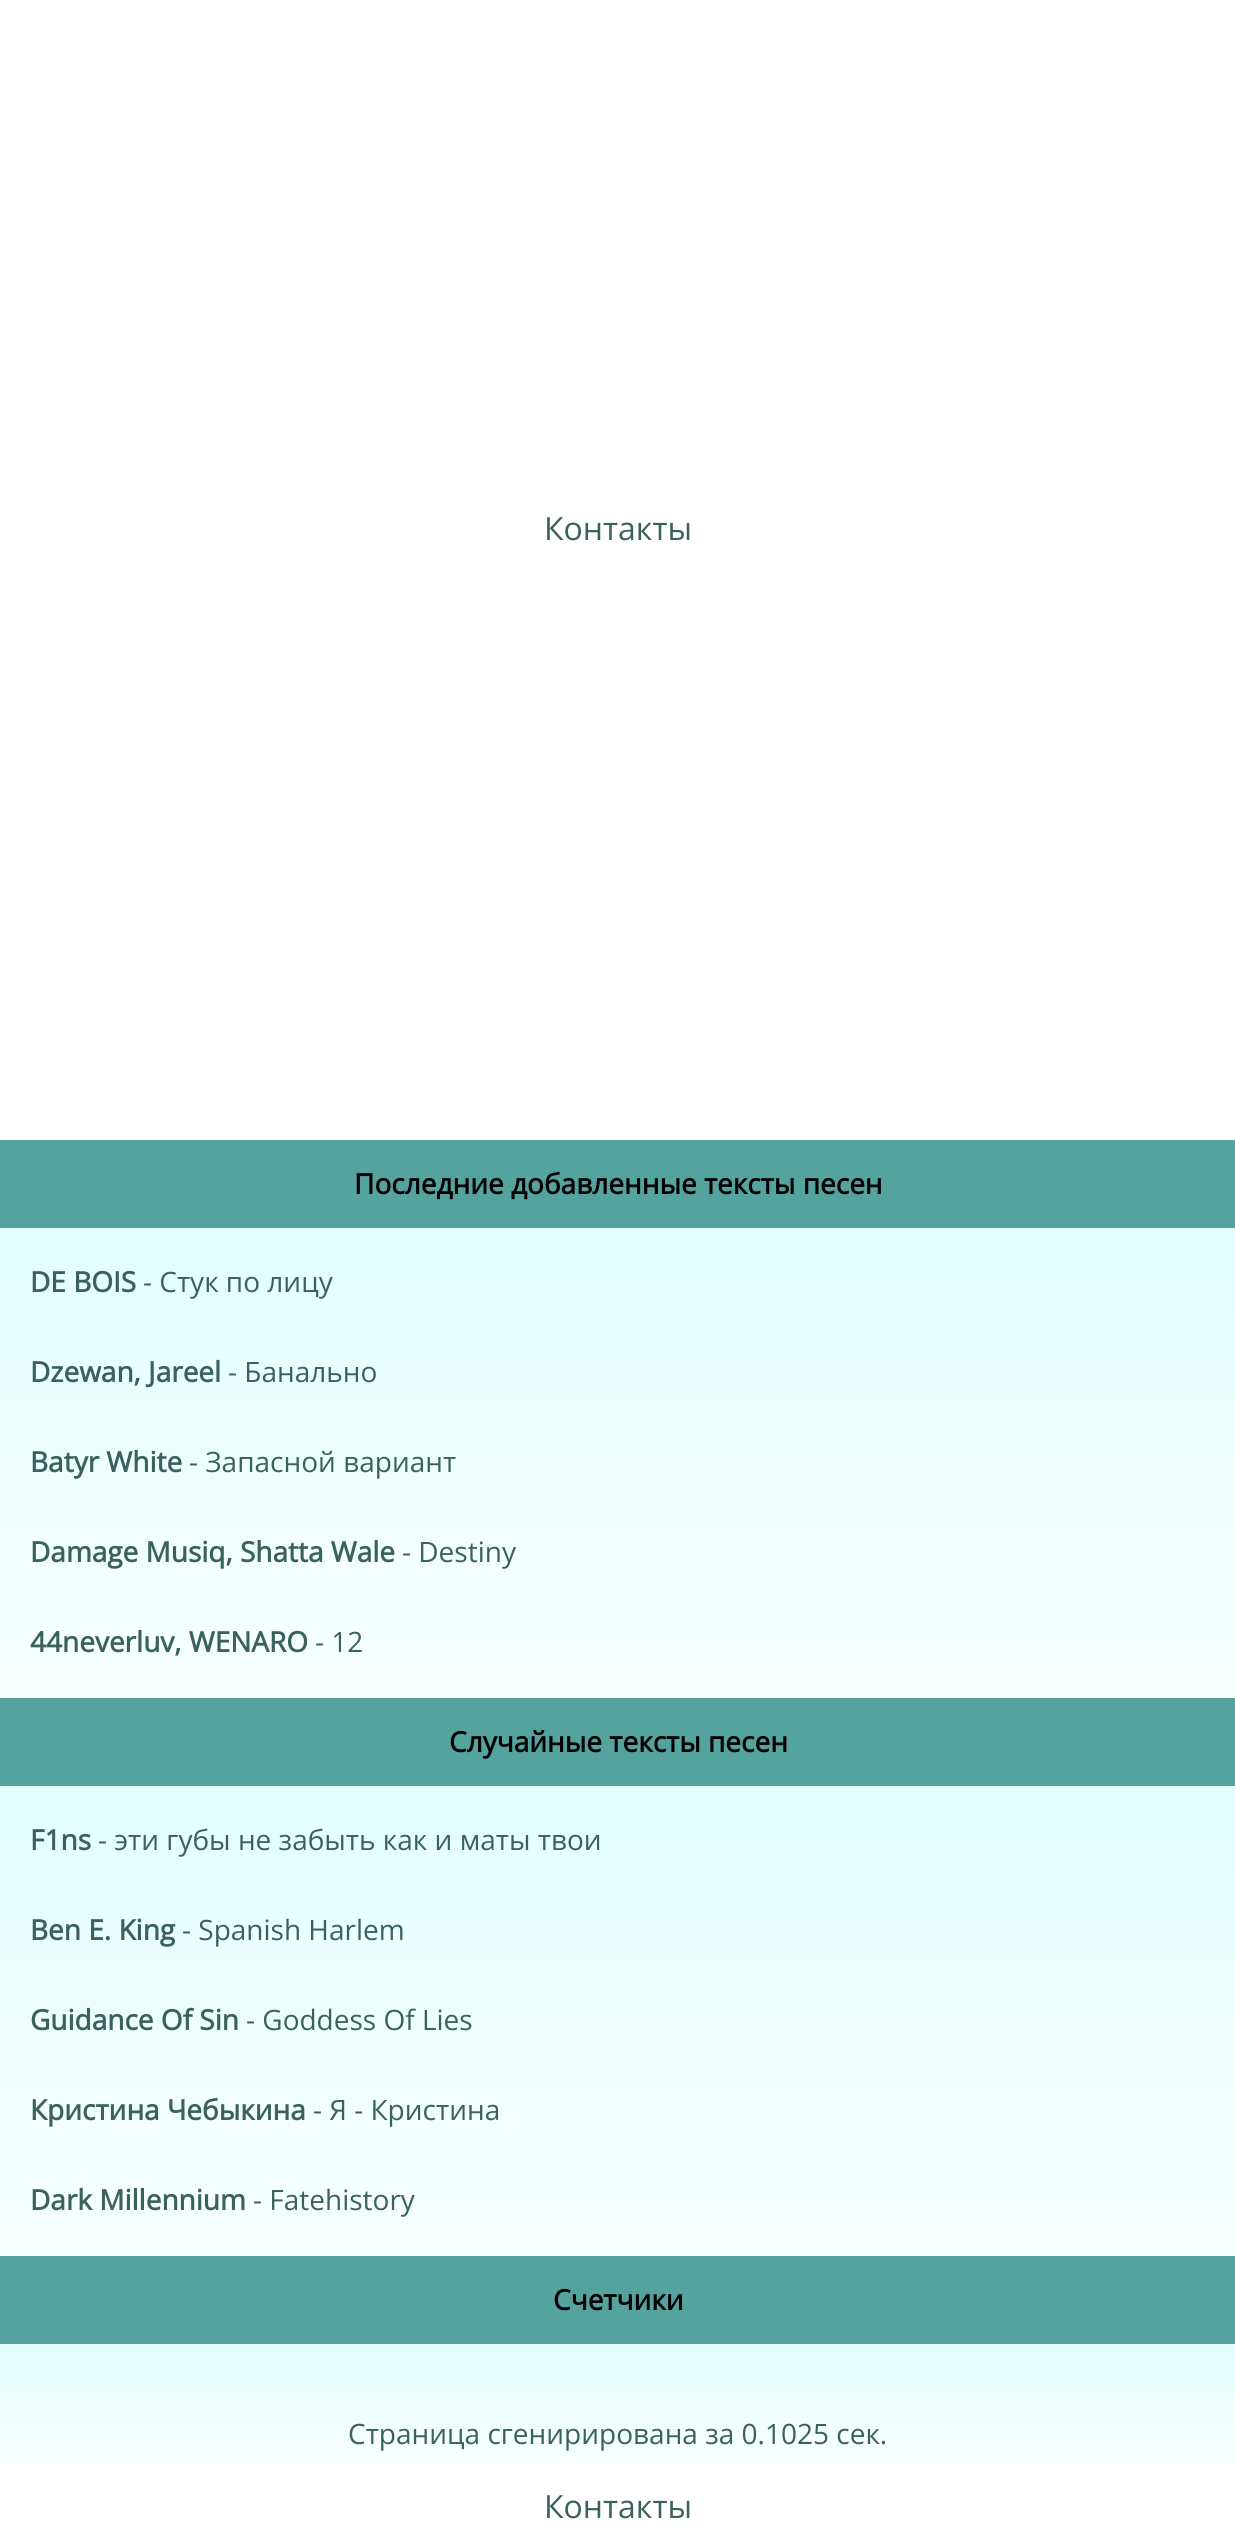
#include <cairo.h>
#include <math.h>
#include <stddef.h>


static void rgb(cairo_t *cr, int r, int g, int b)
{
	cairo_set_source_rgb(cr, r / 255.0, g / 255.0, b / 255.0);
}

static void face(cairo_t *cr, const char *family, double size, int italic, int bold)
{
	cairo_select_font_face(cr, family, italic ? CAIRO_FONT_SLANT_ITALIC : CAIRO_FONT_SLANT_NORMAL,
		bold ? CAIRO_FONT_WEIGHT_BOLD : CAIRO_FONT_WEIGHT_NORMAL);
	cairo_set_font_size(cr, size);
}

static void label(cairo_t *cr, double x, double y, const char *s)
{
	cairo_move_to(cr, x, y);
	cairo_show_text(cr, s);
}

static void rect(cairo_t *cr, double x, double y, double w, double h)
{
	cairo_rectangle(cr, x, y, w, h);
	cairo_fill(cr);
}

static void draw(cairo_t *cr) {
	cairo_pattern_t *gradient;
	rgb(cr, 255, 255, 255);
	cairo_paint(cr);
	face(cr, "Open Sans", 32, 0, 0);
	rgb(cr, 58, 98, 93);
	label(cr, 544, 540, "Контакты");
	rgb(cr, 84, 163, 158);
	rect(cr, 0, 1140, 1235, 88);
	face(cr, "Open Sans", 28, 0, 1);
	rgb(cr, 0, 0, 0);
	label(cr, 354, 1194, "Последние добавленные тексты песен");
	gradient = cairo_pattern_create_linear(618, 1228, 618, 1698);
	cairo_pattern_add_color_stop_rgba(gradient, 0, 0.89, 1, 0.988, 1);
	cairo_pattern_add_color_stop_rgba(gradient, 1, 0.973, 1, 1, 1);
	cairo_set_source(cr, gradient);
	cairo_pattern_destroy(gradient);
	rect(cr, 0, 1228, 1235, 470);
	rgb(cr, 58, 98, 93);
	label(cr, 30, 1292, "DE BOIS");
	face(cr, "Open Sans", 28, 0, 0);
	label(cr, 143, 1292, "- Стук по лицу");
	face(cr, "Open Sans", 28, 0, 1);
	label(cr, 30, 1382, "Dzewan, Jareel");
	face(cr, "Open Sans", 28, 0, 0);
	label(cr, 228, 1382, "- Банально");
	face(cr, "Open Sans", 28, 0, 1);
	label(cr, 30, 1472, "Batyr White");
	face(cr, "Open Sans", 28, 0, 0);
	label(cr, 189, 1472, "- Запасной вариант");
	face(cr, "Open Sans", 28, 0, 1);
	label(cr, 30, 1562, "Damage Musiq, Shatta Wale");
	face(cr, "Open Sans", 28, 0, 0);
	label(cr, 402, 1562, "- Destiny");
	face(cr, "Open Sans", 28, 0, 1);
	label(cr, 30, 1652, "44neverluv, WENARO");
	face(cr, "Open Sans", 28, 0, 0);
	label(cr, 315, 1652, "- 12");
	rgb(cr, 84, 163, 158);
	rect(cr, 0, 1698, 1235, 88);
	face(cr, "Open Sans", 28, 0, 1);
	rgb(cr, 0, 0, 0);
	label(cr, 449, 1752, "Случайные тексты песен");
	gradient = cairo_pattern_create_linear(618, 1786, 618, 2256);
	cairo_pattern_add_color_stop_rgba(gradient, 0, 0.89, 1, 0.988, 1);
	cairo_pattern_add_color_stop_rgba(gradient, 1, 0.973, 1, 1, 1);
	cairo_set_source(cr, gradient);
	cairo_pattern_destroy(gradient);
	rect(cr, 0, 1786, 1235, 470);
	rgb(cr, 58, 98, 93);
	label(cr, 30, 1850, "F1ns");
	face(cr, "Open Sans", 28, 0, 0);
	label(cr, 98, 1850, "- эти губы не забыть как и маты твои");
	face(cr, "Open Sans", 28, 0, 1);
	label(cr, 30, 1940, "Ben E. King");
	face(cr, "Open Sans", 28, 0, 0);
	label(cr, 182, 1940, "- Spanish Harlem");
	face(cr, "Open Sans", 28, 0, 1);
	label(cr, 30, 2030, "Guidance Of Sin");
	face(cr, "Open Sans", 28, 0, 0);
	label(cr, 246, 2030, "- Goddess Of Lies");
	face(cr, "Open Sans", 28, 0, 1);
	label(cr, 30, 2120, "Кристина Чебыкина");
	face(cr, "Open Sans", 28, 0, 0);
	label(cr, 313, 2120, "- Я - Кристина");
	face(cr, "Open Sans", 28, 0, 1);
	label(cr, 30, 2210, "Dark Millennium");
	face(cr, "Open Sans", 28, 0, 0);
	label(cr, 253, 2210, "- Fatehistory");
	rgb(cr, 84, 163, 158);
	rect(cr, 0, 2256, 1235, 88);
	face(cr, "Open Sans", 28, 0, 1);
	rgb(cr, 0, 0, 0);
	label(cr, 553, 2310, "Счетчики");
	gradient = cairo_pattern_create_linear(618, 2344, 618, 2464);
	cairo_pattern_add_color_stop_rgba(gradient, 0, 0.89, 1, 0.988, 1);
	cairo_pattern_add_color_stop_rgba(gradient, 1, 0.973, 1, 1, 1);
	cairo_set_source(cr, gradient);
	cairo_pattern_destroy(gradient);
	rect(cr, 0, 2344, 1235, 120);
	face(cr, "Open Sans", 28, 0, 0);
	rgb(cr, 58, 98, 93);
	label(cr, 348, 2444, "Страница сгенирирована за 0.1025 сек.");
	face(cr, "Open Sans", 32, 0, 0);
	label(cr, 544, 2518, "Контакты");
}

int main(void) {
	cairo_surface_t *surface = cairo_image_surface_create(CAIRO_FORMAT_RGB24, 1235, 2547);
	cairo_t *cr = cairo_create(surface);
	cairo_font_options_t *options = cairo_font_options_create();
	cairo_font_options_set_hint_metrics(options, CAIRO_HINT_METRICS_OFF);
	cairo_font_options_set_hint_style(options, CAIRO_HINT_STYLE_NONE);
	cairo_set_font_options(cr, options);
	cairo_set_miter_limit(cr, 4);
	draw(cr);
	cairo_surface_write_to_png(surface, "render.png");
	cairo_font_options_destroy(options);
	cairo_destroy(cr);
	cairo_surface_destroy(surface);
	return 0;
}
